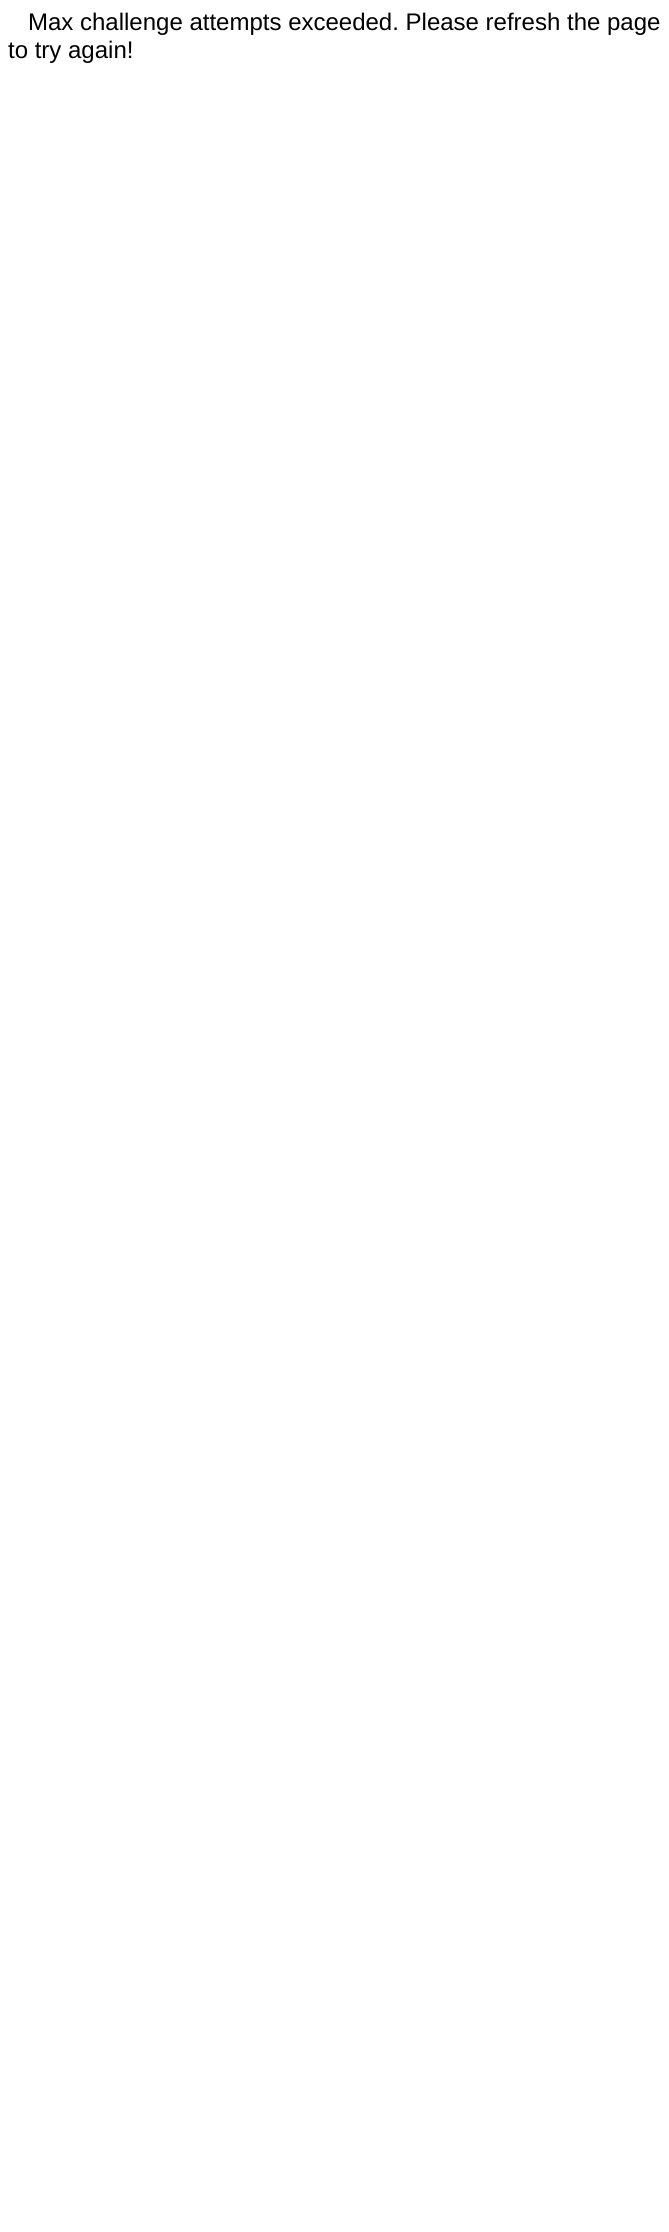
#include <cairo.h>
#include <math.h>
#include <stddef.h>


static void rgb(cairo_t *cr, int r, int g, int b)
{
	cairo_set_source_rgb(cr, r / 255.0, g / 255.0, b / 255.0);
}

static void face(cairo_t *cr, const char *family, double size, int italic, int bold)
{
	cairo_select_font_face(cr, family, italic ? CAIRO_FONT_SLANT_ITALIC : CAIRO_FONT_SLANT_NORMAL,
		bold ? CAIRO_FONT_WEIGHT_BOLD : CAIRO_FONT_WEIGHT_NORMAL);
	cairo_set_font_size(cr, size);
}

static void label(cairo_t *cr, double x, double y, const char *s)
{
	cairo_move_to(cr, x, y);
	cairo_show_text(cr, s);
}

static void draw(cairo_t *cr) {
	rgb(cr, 255, 255, 255);
	cairo_paint(cr);
	face(cr, "Liberation Sans", 24, 0, 0);
	rgb(cr, 0, 0, 0);
	label(cr, 28, 30, "Max challenge attempts exceeded. Please refresh the page");
	label(cr, 8, 58, "to try again!");
}

int main(void) {
	cairo_surface_t *surface = cairo_image_surface_create(CAIRO_FORMAT_RGB24, 669, 2232);
	cairo_t *cr = cairo_create(surface);
	cairo_font_options_t *options = cairo_font_options_create();
	cairo_font_options_set_hint_metrics(options, CAIRO_HINT_METRICS_OFF);
	cairo_font_options_set_hint_style(options, CAIRO_HINT_STYLE_NONE);
	cairo_set_font_options(cr, options);
	cairo_set_miter_limit(cr, 4);
	draw(cr);
	cairo_surface_write_to_png(surface, "render.png");
	cairo_font_options_destroy(options);
	cairo_destroy(cr);
	cairo_surface_destroy(surface);
	return 0;
}
